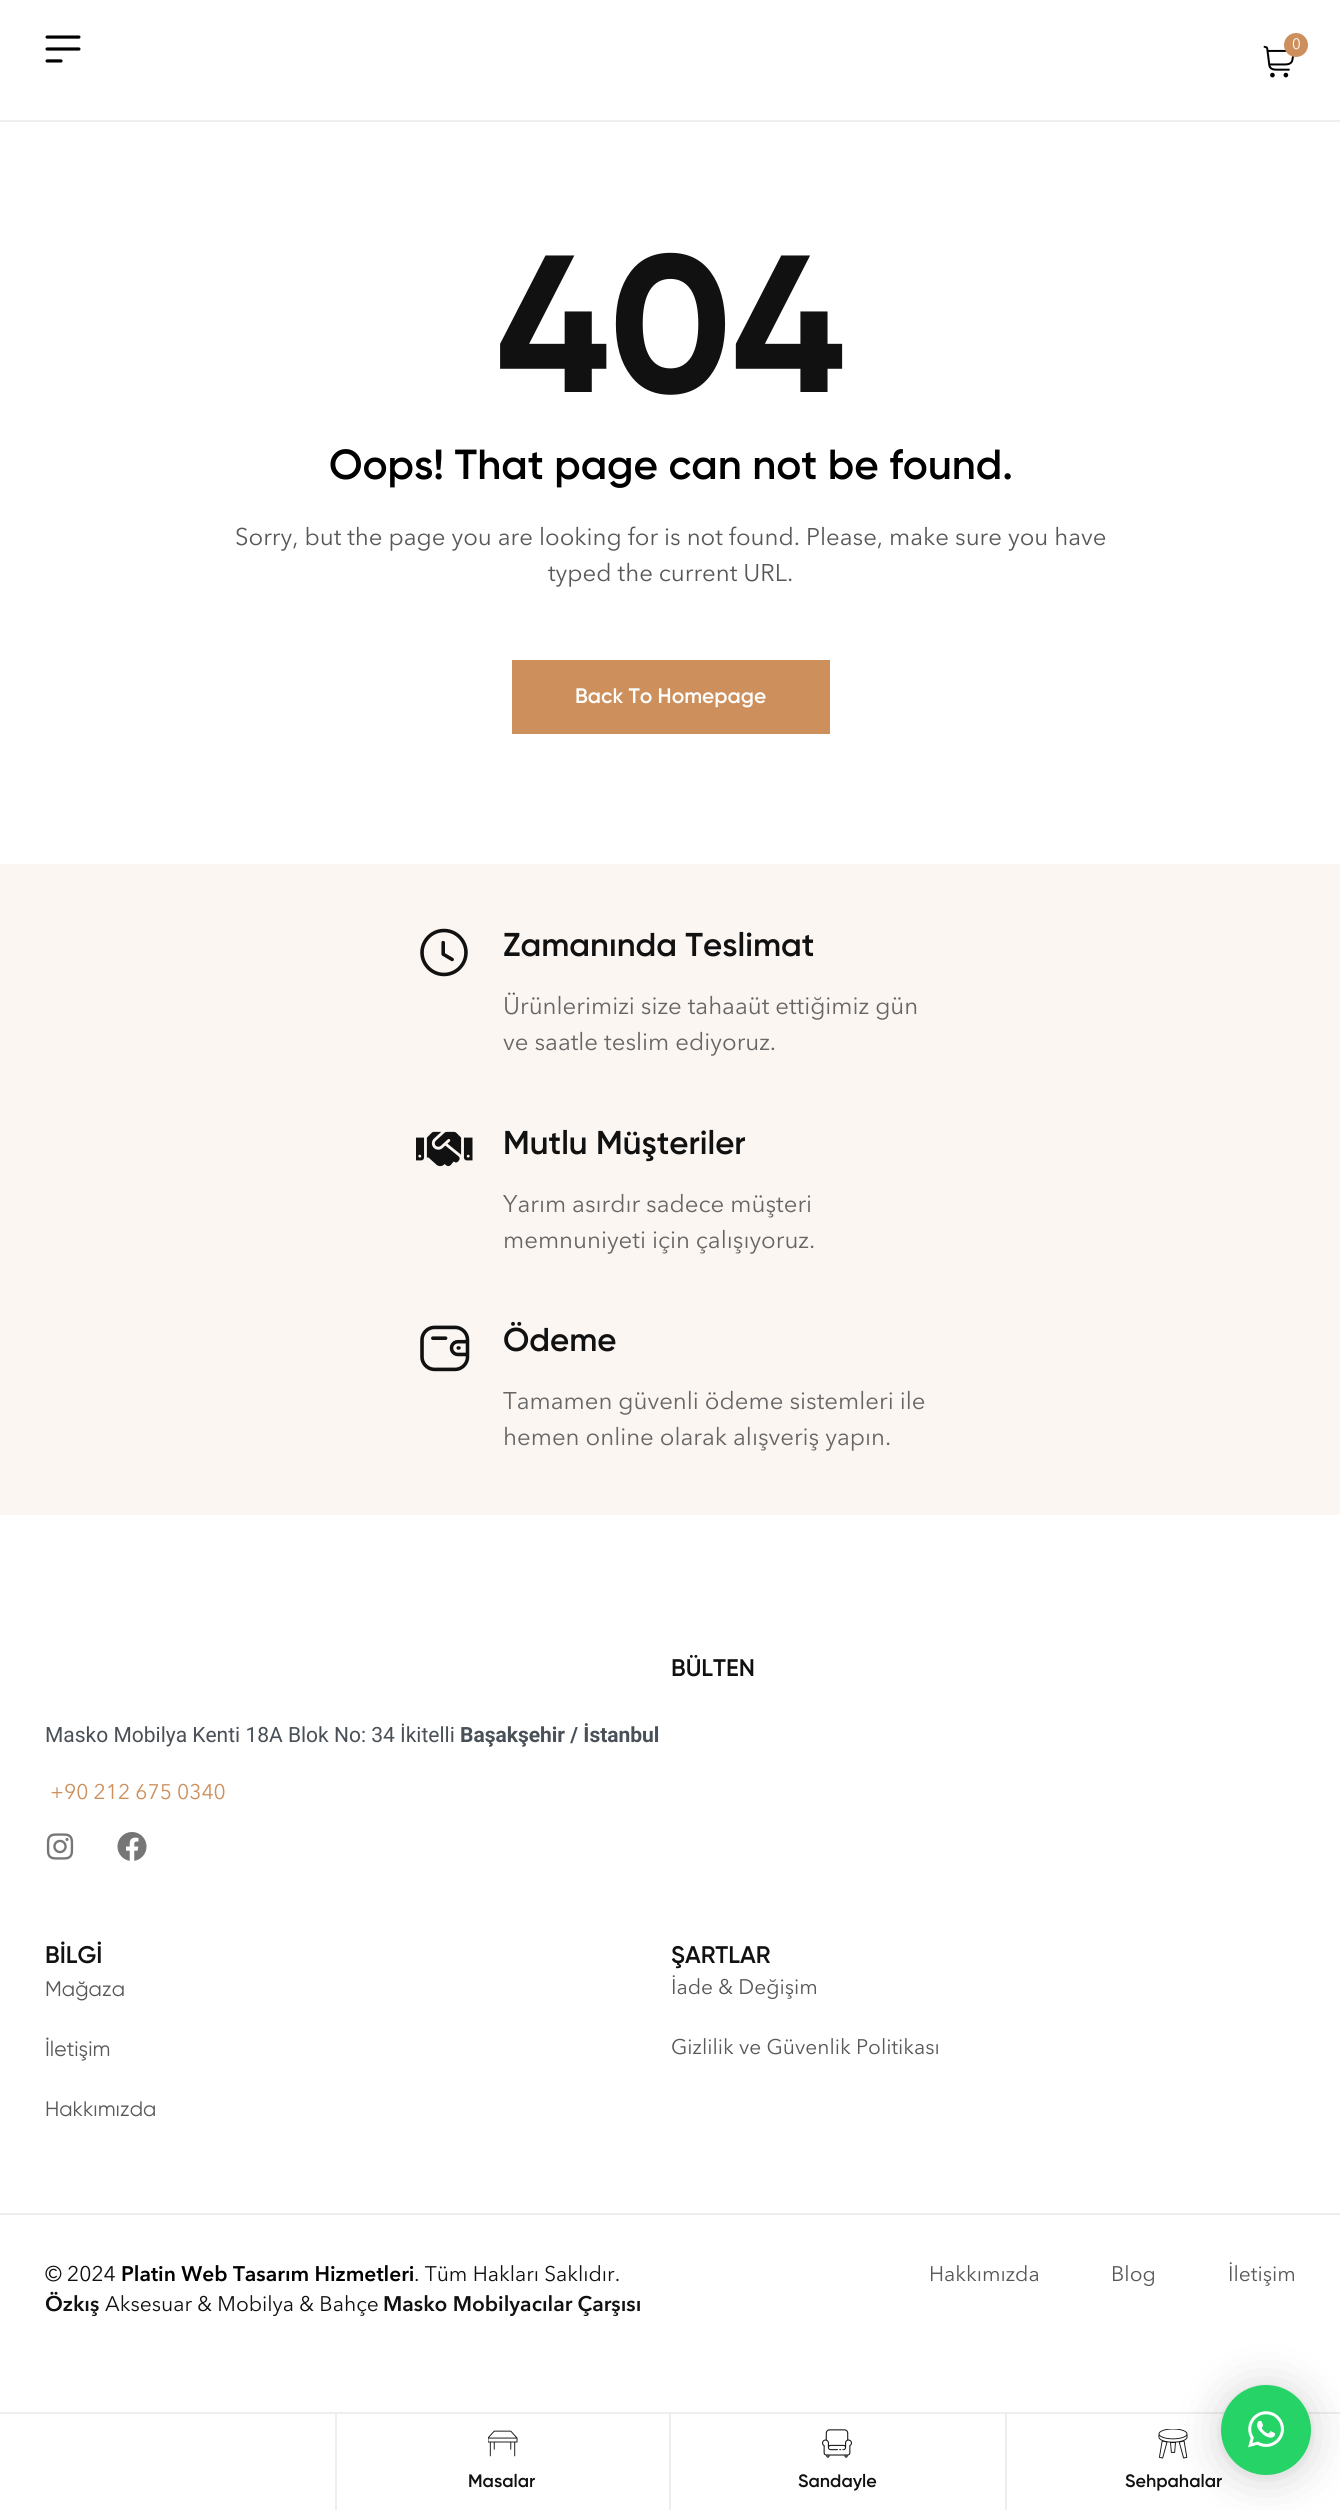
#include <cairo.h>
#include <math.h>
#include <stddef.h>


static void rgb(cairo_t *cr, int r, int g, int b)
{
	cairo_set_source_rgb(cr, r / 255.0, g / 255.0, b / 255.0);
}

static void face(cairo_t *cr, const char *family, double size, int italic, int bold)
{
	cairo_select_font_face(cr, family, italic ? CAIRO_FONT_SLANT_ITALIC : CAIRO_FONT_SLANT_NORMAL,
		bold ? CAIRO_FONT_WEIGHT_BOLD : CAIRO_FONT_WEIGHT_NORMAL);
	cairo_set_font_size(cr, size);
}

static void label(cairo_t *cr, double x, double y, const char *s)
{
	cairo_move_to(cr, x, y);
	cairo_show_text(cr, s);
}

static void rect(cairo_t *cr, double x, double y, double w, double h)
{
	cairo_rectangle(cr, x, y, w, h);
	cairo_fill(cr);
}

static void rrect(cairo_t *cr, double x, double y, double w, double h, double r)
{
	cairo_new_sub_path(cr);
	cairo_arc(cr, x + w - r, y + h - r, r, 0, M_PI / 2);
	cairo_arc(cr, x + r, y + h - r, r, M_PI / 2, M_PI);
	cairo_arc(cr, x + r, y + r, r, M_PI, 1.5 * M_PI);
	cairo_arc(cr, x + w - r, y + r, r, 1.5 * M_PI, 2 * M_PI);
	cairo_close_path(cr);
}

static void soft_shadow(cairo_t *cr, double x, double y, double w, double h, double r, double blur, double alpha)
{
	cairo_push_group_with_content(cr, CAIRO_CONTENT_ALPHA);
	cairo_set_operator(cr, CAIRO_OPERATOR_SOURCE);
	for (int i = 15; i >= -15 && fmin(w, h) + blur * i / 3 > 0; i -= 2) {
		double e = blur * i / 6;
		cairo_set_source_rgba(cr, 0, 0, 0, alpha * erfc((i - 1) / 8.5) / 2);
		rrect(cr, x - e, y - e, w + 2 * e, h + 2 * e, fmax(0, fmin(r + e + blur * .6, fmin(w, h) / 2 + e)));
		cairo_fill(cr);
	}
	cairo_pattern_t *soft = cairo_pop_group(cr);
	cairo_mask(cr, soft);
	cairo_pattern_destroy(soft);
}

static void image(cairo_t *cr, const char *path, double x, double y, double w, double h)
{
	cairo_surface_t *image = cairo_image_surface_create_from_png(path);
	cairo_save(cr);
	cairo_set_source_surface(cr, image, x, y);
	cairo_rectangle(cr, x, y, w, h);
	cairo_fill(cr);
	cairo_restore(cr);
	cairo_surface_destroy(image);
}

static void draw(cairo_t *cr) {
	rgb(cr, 255, 255, 255);
	cairo_paint(cr);
	image(cr, "image0.png", 45, 35, 36, 28);
	image(cr, "image1.png", 1263, 45, 32, 33);
	rgb(cr, 205, 143, 92);
	cairo_arc(cr, 1296, 45, 12, 0, 2 * M_PI);
	cairo_fill(cr);
	face(cr, "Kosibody", 15, 0, 0);
	rgb(cr, 255, 255, 255);
	label(cr, 1292, 49, "0");
	rgb(cr, 238, 238, 238);
	rect(cr, 0, 120, 1340, 2);
	face(cr, "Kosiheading", 195, 0, 1);
	rgb(cr, 17, 17, 17);
	label(cr, 496, 392, "404");
	face(cr, "Kosiheading SemiBold", 42, 0, 0);
	rgb(cr, 0, 0, 0);
	label(cr, 329, 479, "Oops! That page can not be found.");
	face(cr, "Kosibody", 24, 0, 0);
	rgb(cr, 88, 88, 88);
	label(cr, 235, 545, "Sorry, but the page you are looking for is not found. Please, make sure you have");
	label(cr, 548, 581, "typed the current URL.");
	rgb(cr, 205, 143, 92);
	rect(cr, 512, 660, 318, 74);
	face(cr, "Kosiheading SemiBold", 21, 0, 0);
	rgb(cr, 255, 255, 255);
	label(cr, 575, 703, "Back To Homepage");
	rgb(cr, 252, 246, 242);
	rect(cr, 0, 864, 1340, 651);
	image(cr, "image2.png", 420, 928, 48, 49);
	face(cr, "Kosiheading SemiBold", 33, 0, 0);
	rgb(cr, 17, 17, 17);
	label(cr, 503, 956, "Zamanında Teslimat");
	face(cr, "Kosibody", 24, 0, 0);
	rgb(cr, 102, 102, 102);
	label(cr, 503, 1014, "Ürünlerimizi size tahaaüt ettiğimiz gün");
	label(cr, 503, 1050, "ve saatle teslim ediyoruz.");
	image(cr, "image3.png", 416, 1131, 57, 36);
	face(cr, "Kosiheading SemiBold", 33, 0, 0);
	rgb(cr, 17, 17, 17);
	label(cr, 503, 1154, "Mutlu Müşteriler");
	face(cr, "Kosibody", 24, 0, 0);
	rgb(cr, 102, 102, 102);
	label(cr, 503, 1212, "Yarım asırdır sadece müşteri");
	label(cr, 503, 1248, "memnuniyeti için çalışıyoruz.");
	image(cr, "image4.png", 420, 1325, 50, 47);
	face(cr, "Kosiheading SemiBold", 33, 0, 0);
	rgb(cr, 17, 17, 17);
	label(cr, 503, 1351, "Ödeme");
	face(cr, "Kosibody", 24, 0, 0);
	rgb(cr, 102, 102, 102);
	label(cr, 503, 1409, "Tamamen güvenli ödeme sistemleri ile");
	label(cr, 503, 1445, "hemen online olarak alışveriş yapın.");
	rgb(cr, 238, 238, 238);
	rect(cr, 0, 2213, 1340, 2);
	face(cr, "Kosiheading SemiBold", 24, 0, 0);
	rgb(cr, 17, 17, 17);
	label(cr, 671, 1676, "BÜLTEN");
	face(cr, "Roboto", 21, 0, 0);
	rgb(cr, 73, 80, 87);
	label(cr, 45, 1742, "Masko Mobilya Kenti 18A Blok No: 34 İkitelli");
	face(cr, "Roboto", 21, 0, 1);
	label(cr, 460, 1742, "Başakşehir / İstanbul");
	face(cr, "Kosibody", 21, 0, 0);
	rgb(cr, 205, 143, 92);
	label(cr, 50, 1799, "+90 212 675 0340");
	image(cr, "image5.png", 46, 1833, 28, 27);
	image(cr, "image6.png", 117, 1832, 30, 29);
	face(cr, "Kosiheading SemiBold", 24, 0, 0);
	rgb(cr, 17, 17, 17);
	label(cr, 45, 1963, "BİLGİ");
	face(cr, "Kosiheading", 21, 0, 0);
	rgb(cr, 88, 88, 88);
	label(cr, 45, 1996, "Mağaza");
	label(cr, 45, 2056, "İletişim");
	label(cr, 45, 2116, "Hakkımızda");
	face(cr, "Kosiheading SemiBold", 24, 0, 0);
	rgb(cr, 17, 17, 17);
	label(cr, 671, 1963, "ŞARTLAR");
	face(cr, "Kosibody", 21, 0, 0);
	rgb(cr, 88, 88, 88);
	label(cr, 671, 1994, "İade & Değişim");
	label(cr, 671, 2054, "Gizlilik ve Güvenlik Politikası");
	rgb(cr, 17, 17, 17);
	label(cr, 45, 2281, "© 2024");
	face(cr, "Kosibody Medium", 21, 0, 0);
	rgb(cr, 0, 0, 0);
	label(cr, 121, 2281, "Platin Web Tasarım Hizmetleri");
	face(cr, "Kosibody", 21, 0, 0);
	rgb(cr, 17, 17, 17);
	label(cr, 414, 2281, ". Tüm Hakları Saklıdır.");
	face(cr, "Kosibody Medium", 21, 0, 0);
	label(cr, 45, 2311, "Özkış");
	face(cr, "Kosibody", 21, 0, 0);
	label(cr, 105, 2311, "Aksesuar & Mobilya & Bahçe");
	face(cr, "Kosibody Medium", 21, 0, 0);
	label(cr, 383, 2311, "Masko Mobilyacılar Çarşısı");
	face(cr, "Kosibody", 21, 0, 0);
	rgb(cr, 88, 88, 88);
	label(cr, 929, 2281, "Hakkımızda");
	label(cr, 1111, 2281, "Blog");
	label(cr, 1228, 2281, "İletişim");
	rgb(cr, 238, 238, 238);
	rect(cr, 0, 2412, 1340, 2);
	rect(cr, 335, 2414, 2, 96);
	rect(cr, 669, 2414, 2, 96);
	image(cr, "image7.png", 488, 2430, 30, 27);
	face(cr, "Kosiheading SemiBold", 18, 0, 0);
	rgb(cr, 17, 17, 17);
	label(cr, 468, 2487, "Masalar");
	rgb(cr, 238, 238, 238);
	rect(cr, 1005, 2414, 2, 96);
	image(cr, "image8.png", 822, 2429, 30, 29);
	rgb(cr, 17, 17, 17);
	label(cr, 798, 2487, "Sandayle");
	image(cr, "image9.png", 1158, 2429, 30, 30);
	label(cr, 1125, 2487, "Sehpahalar");
	rgb(cr, 0, 0, 0);
	soft_shadow(cr, 1221, 2388, 90, 90, 45, 24, 0.16);
	soft_shadow(cr, 1221, 2387, 90, 90, 45, 4.5, 0.06);
	rgb(cr, 37, 211, 102);
	cairo_arc(cr, 1266, 2430, 45, 0, 2 * M_PI);
	cairo_fill(cr);
	image(cr, "image10.png", 1248, 2411, 36, 37);
}

int main(void) {
	cairo_surface_t *surface = cairo_image_surface_create(CAIRO_FORMAT_RGB24, 1340, 2510);
	cairo_t *cr = cairo_create(surface);
	cairo_font_options_t *options = cairo_font_options_create();
	cairo_font_options_set_hint_metrics(options, CAIRO_HINT_METRICS_OFF);
	cairo_font_options_set_hint_style(options, CAIRO_HINT_STYLE_NONE);
	cairo_set_font_options(cr, options);
	cairo_set_miter_limit(cr, 4);
	draw(cr);
	cairo_surface_write_to_png(surface, "render.png");
	cairo_font_options_destroy(options);
	cairo_destroy(cr);
	cairo_surface_destroy(surface);
	return 0;
}
